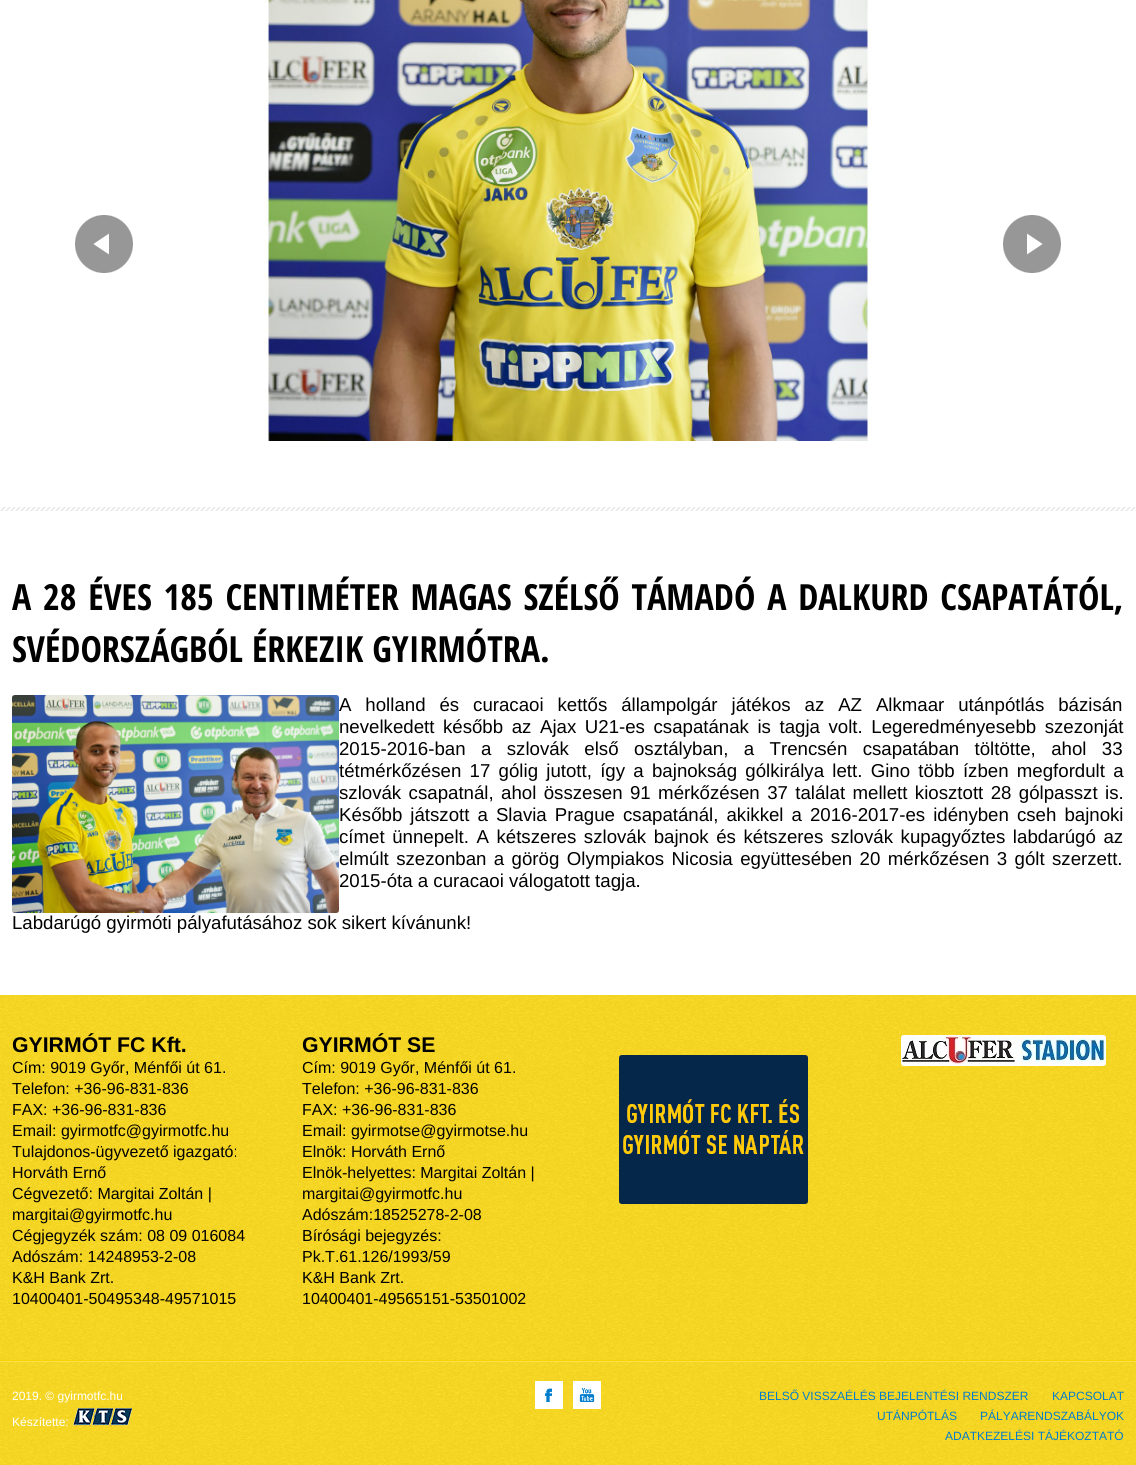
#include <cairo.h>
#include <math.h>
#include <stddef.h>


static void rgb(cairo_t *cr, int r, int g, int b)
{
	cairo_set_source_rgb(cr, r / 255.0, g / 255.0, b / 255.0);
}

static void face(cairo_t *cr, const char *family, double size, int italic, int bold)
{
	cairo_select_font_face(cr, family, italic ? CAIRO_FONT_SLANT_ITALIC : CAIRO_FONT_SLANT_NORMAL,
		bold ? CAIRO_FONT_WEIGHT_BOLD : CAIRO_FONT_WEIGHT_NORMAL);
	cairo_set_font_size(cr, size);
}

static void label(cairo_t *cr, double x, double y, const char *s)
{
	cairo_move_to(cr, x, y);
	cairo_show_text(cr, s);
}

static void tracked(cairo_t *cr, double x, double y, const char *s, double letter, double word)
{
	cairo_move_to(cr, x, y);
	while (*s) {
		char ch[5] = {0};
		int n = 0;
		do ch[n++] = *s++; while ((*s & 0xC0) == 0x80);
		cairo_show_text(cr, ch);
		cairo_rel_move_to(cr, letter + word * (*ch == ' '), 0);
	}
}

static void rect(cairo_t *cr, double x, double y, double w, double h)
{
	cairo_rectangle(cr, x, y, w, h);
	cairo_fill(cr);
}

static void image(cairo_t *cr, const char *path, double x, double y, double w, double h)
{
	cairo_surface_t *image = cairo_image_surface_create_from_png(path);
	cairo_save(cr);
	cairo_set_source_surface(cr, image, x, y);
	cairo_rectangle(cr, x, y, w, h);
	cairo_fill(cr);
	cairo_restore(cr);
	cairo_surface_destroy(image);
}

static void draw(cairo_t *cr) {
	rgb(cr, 255, 255, 255);
	cairo_paint(cr);
	image(cr, "image0.png", 75, 215, 58, 58);
	image(cr, "image1.png", 264, 0, 608, 441);
	image(cr, "image2.png", 1003, 215, 58, 58);
	image(cr, "image3.png", 0, 507, 1136, 4);
	face(cr, "Open Sans Condensed", 36, 0, 1);
	rgb(cr, 0, 0, 0);
	tracked(cr, 12, 610, "A 28 ÉVES 185 CENTIMÉTER MAGAS SZÉLSŐ TÁMADÓ A DALKURD CSAPATÁTÓL,", 0, 2.9);
	label(cr, 12, 662, "SVÉDORSZÁGBÓL ÉRKEZIK GYIRMÓTRA.");
	image(cr, "image4.png", 12, 695, 327, 218);
	face(cr, "Liberation Sans", 18.65, 0, 0);
	tracked(cr, 339, 711, "A holland és curacaoi kettős állampolgár játékos az AZ Alkmaar utánpótlás bázisán", 0, 8.75);
	tracked(cr, 339, 733, "nevelkedett később az Ajax U21-es csapatának is tagja volt. Legeredményesebb szezonját", 0, 3.4);
	tracked(cr, 339, 755, "2015-2016-ban a szlovák első osztályban, a Trencsén csapatában töltötte, ahol 33", 0, 10.25);
	tracked(cr, 339, 777, "tétmérkőzésen 17 gólig jutott, így a bajnokság gólkirálya lett. Gino több ízben megfordult a", 0, 3.1);
	tracked(cr, 339, 799, "szlovák csapatnál, ahol összesen 91 mérkőzésen 37 találat mellett kiosztott 28 gólpasszt is.", 0, 2.25);
	tracked(cr, 339, 821, "Később játszott a Slavia Prague csapatánál, akikkel a 2016-2017-es idényben cseh bajnoki", 0, 2.9);
	tracked(cr, 339, 843, "címet ünnepelt. A kétszeres szlovák bajnok és kétszeres szlovák kupagyőztes labdarúgó az", 0, 2.4);
	tracked(cr, 339, 865, "elmúlt szezonban a görög Olympiakos Nicosia együttesében 20 mérkőzésen 3 gólt szerzett.", 0, 2.25);
	label(cr, 339, 887, "2015-óta a curacaoi válogatott tagja.");
	label(cr, 12, 929, "Labdarúgó gyirmóti pályafutásához sok sikert kívánunk!");
	rgb(cr, 255, 221, 35);
	rect(cr, 0, 995, 1136, 470);
	image(cr, "image5.png", 0, 995, 1136, 470);
	face(cr, "Liberation Sans", 21.25, 0, 1);
	rgb(cr, 0, 0, 0);
	label(cr, 12, 1052, "GYIRMÓT FC Kft.");
	face(cr, "Liberation Sans", 16, 0, 0);
	label(cr, 12, 1073, "Cím: 9019 Győr, Ménfői út 61.");
	label(cr, 12, 1094, "Telefon: +36-96-831-836");
	label(cr, 12, 1115, "FAX: +36-96-831-836");
	label(cr, 12, 1136, "Email: gyirmotfc@gyirmotfc.hu");
	label(cr, 12, 1157, "Tulajdonos-ügyvezető igazgató:");
	label(cr, 12, 1178, "Horváth Ernő");
	label(cr, 12, 1199, "Cégvezető: Margitai Zoltán |");
	label(cr, 12, 1220, "margitai@gyirmotfc.hu");
	label(cr, 12, 1241, "Cégjegyzék szám: 08 09 016084");
	label(cr, 12, 1262, "Adószám: 14248953-2-08");
	label(cr, 12, 1283, "K&H Bank Zrt.");
	label(cr, 12, 1304, "10400401-50495348-49571015");
	face(cr, "Liberation Sans", 21.25, 0, 1);
	label(cr, 302, 1052, "GYIRMÓT SE");
	face(cr, "Liberation Sans", 16, 0, 0);
	label(cr, 302, 1073, "Cím: 9019 Győr, Ménfői út 61.");
	label(cr, 302, 1094, "Telefon: +36-96-831-836");
	label(cr, 302, 1115, "FAX: +36-96-831-836");
	label(cr, 302, 1136, "Email: gyirmotse@gyirmotse.hu");
	label(cr, 302, 1157, "Elnök: Horváth Ernő");
	label(cr, 302, 1178, "Elnök-helyettes: Margitai Zoltán |");
	label(cr, 302, 1199, "margitai@gyirmotfc.hu");
	label(cr, 302, 1220, "Adószám:18525278-2-08");
	label(cr, 302, 1241, "Bírósági bejegyzés:");
	label(cr, 302, 1262, "Pk.T.61.126/1993/59");
	label(cr, 302, 1283, "K&H Bank Zrt.");
	label(cr, 302, 1304, "10400401-49565151-53501002");
	image(cr, "image6.png", 901, 1035, 205, 31);
	image(cr, "image7.png", 619, 1055, 189, 149);
	rgb(cr, 255, 227, 76);
	rect(cr, 0, 1361, 1136, 1);
	rgb(cr, 249, 211, 0);
	rect(cr, 0, 1360, 1136, 1);
	face(cr, "Liberation Sans", 12, 0, 0);
	rgb(cr, 255, 255, 255);
	label(cr, 12, 1400, "2019. © gyirmotfc.hu");
	label(cr, 12, 1426, "Készítette:");
	image(cr, "image8.png", 73, 1408, 59, 18);
	rect(cr, 535, 1381, 28, 28);
	image(cr, "image9.png", 545, 1388, 7, 14);
	rect(cr, 573, 1381, 28, 28);
	image(cr, "image10.png", 579, 1388, 16, 14);
	rgb(cr, 0, 125, 205);
	label(cr, 759, 1400, "BELSŐ VISSZAÉLÉS BEJELENTÉSI RENDSZER");
	label(cr, 1052, 1400, "KAPCSOLAT");
	label(cr, 877, 1420, "UTÁNPÓTLÁS");
	label(cr, 980, 1420, "PÁLYARENDSZABÁLYOK");
	label(cr, 945, 1440, "ADATKEZELÉSI TÁJÉKOZTATÓ");
}

int main(void) {
	cairo_surface_t *surface = cairo_image_surface_create(CAIRO_FORMAT_RGB24, 1136, 1465);
	cairo_t *cr = cairo_create(surface);
	cairo_font_options_t *options = cairo_font_options_create();
	cairo_font_options_set_hint_metrics(options, CAIRO_HINT_METRICS_OFF);
	cairo_font_options_set_hint_style(options, CAIRO_HINT_STYLE_NONE);
	cairo_set_font_options(cr, options);
	cairo_set_miter_limit(cr, 4);
	draw(cr);
	cairo_surface_write_to_png(surface, "render.png");
	cairo_font_options_destroy(options);
	cairo_destroy(cr);
	cairo_surface_destroy(surface);
	return 0;
}
